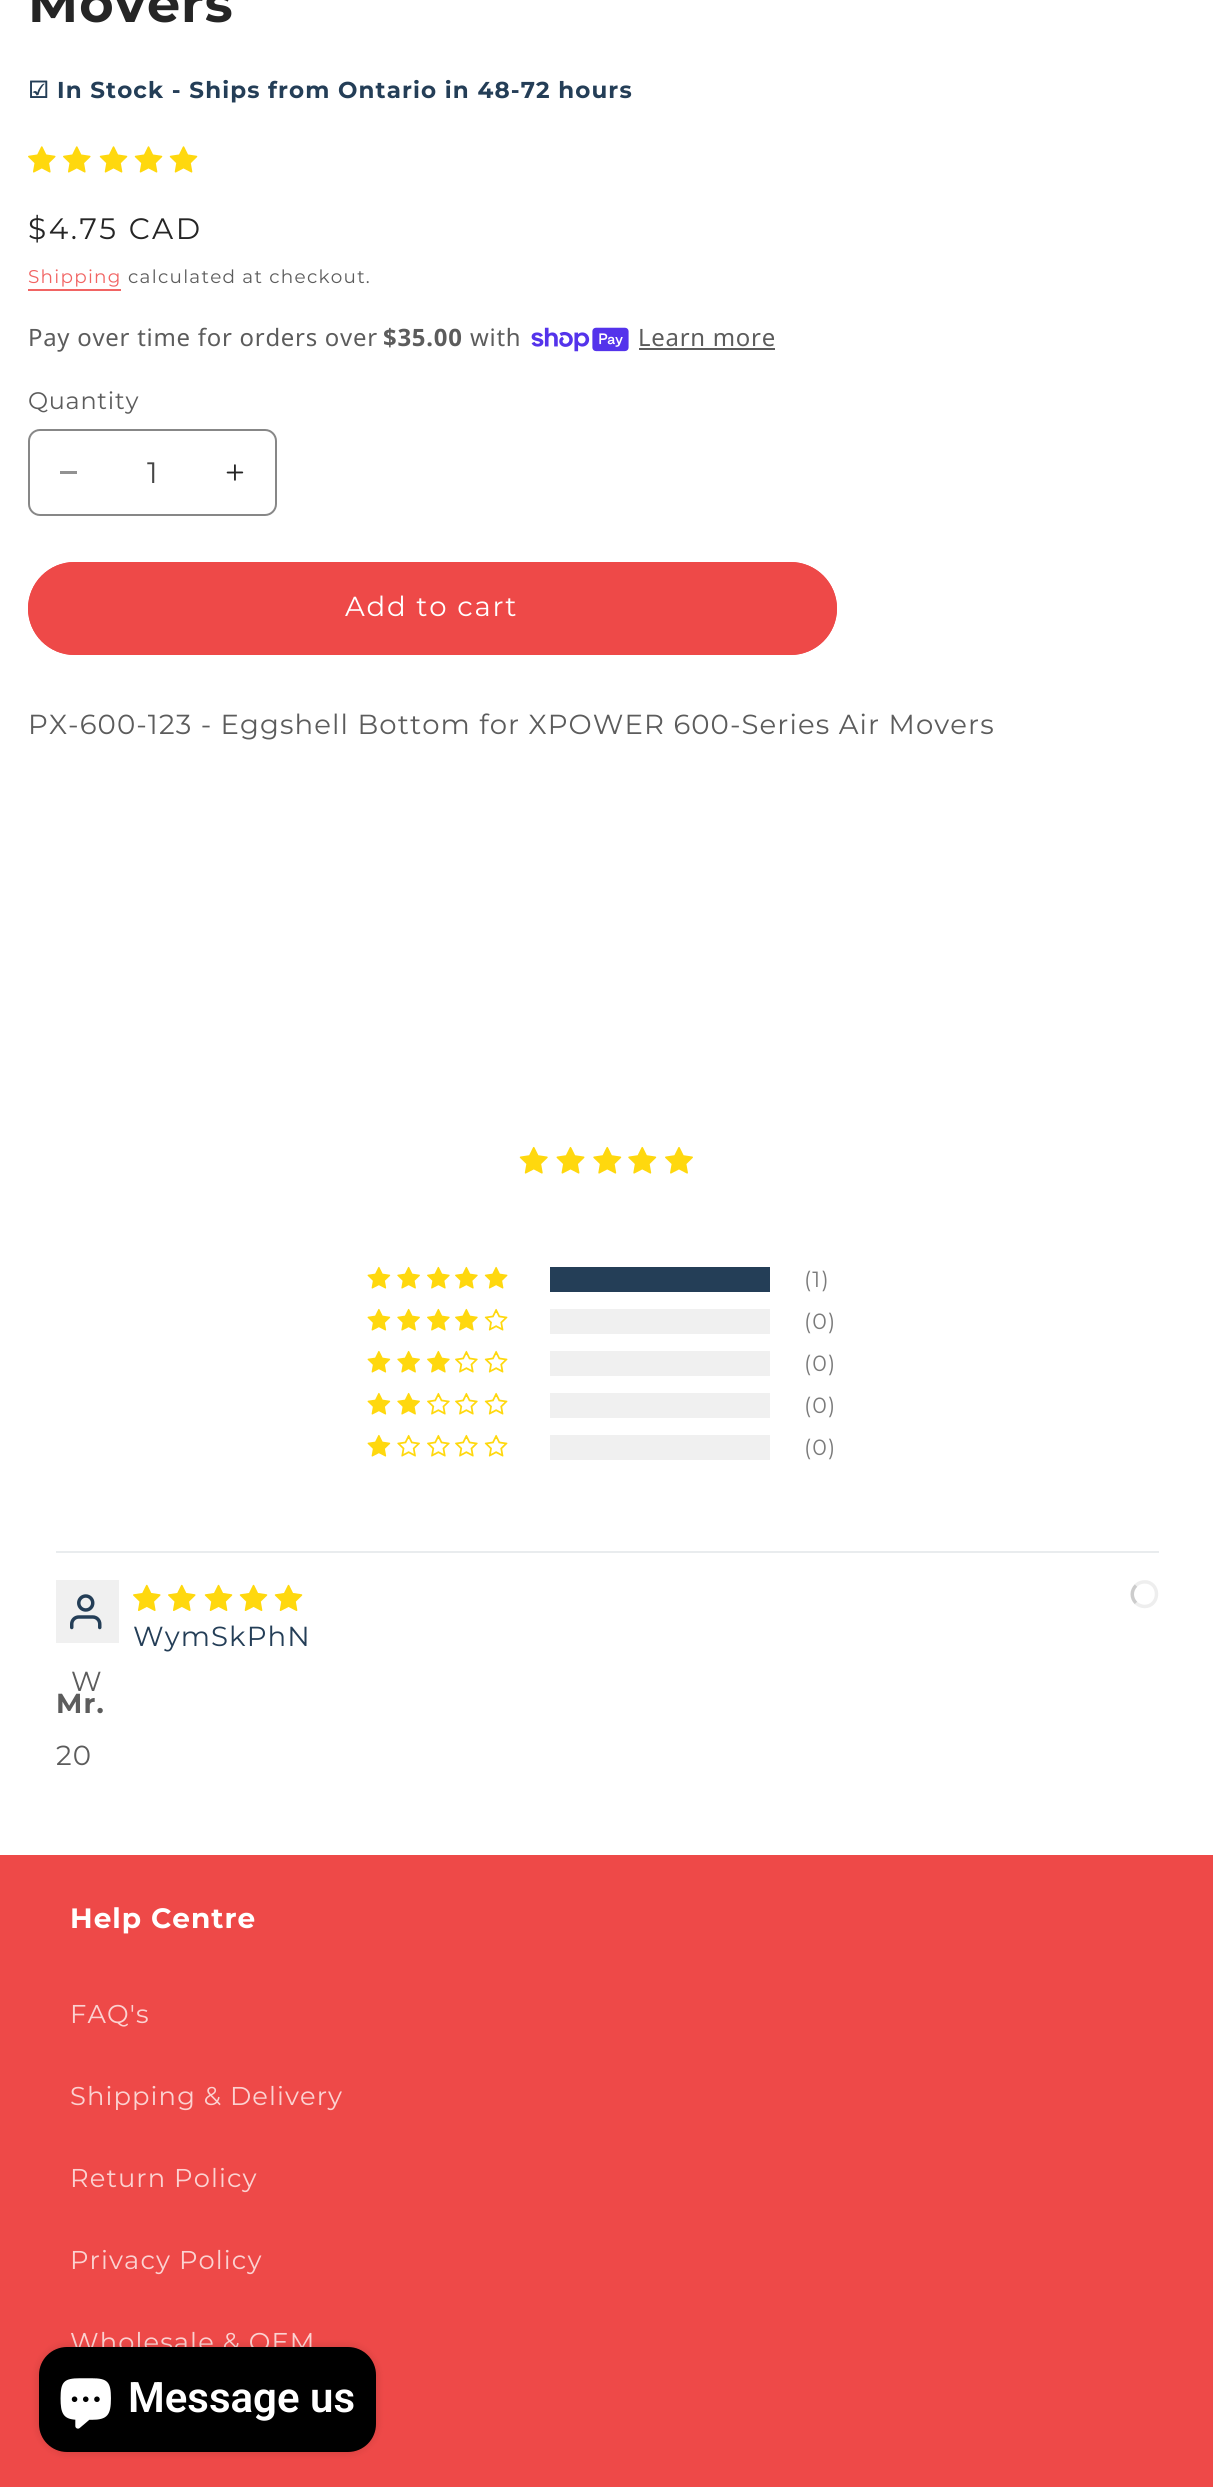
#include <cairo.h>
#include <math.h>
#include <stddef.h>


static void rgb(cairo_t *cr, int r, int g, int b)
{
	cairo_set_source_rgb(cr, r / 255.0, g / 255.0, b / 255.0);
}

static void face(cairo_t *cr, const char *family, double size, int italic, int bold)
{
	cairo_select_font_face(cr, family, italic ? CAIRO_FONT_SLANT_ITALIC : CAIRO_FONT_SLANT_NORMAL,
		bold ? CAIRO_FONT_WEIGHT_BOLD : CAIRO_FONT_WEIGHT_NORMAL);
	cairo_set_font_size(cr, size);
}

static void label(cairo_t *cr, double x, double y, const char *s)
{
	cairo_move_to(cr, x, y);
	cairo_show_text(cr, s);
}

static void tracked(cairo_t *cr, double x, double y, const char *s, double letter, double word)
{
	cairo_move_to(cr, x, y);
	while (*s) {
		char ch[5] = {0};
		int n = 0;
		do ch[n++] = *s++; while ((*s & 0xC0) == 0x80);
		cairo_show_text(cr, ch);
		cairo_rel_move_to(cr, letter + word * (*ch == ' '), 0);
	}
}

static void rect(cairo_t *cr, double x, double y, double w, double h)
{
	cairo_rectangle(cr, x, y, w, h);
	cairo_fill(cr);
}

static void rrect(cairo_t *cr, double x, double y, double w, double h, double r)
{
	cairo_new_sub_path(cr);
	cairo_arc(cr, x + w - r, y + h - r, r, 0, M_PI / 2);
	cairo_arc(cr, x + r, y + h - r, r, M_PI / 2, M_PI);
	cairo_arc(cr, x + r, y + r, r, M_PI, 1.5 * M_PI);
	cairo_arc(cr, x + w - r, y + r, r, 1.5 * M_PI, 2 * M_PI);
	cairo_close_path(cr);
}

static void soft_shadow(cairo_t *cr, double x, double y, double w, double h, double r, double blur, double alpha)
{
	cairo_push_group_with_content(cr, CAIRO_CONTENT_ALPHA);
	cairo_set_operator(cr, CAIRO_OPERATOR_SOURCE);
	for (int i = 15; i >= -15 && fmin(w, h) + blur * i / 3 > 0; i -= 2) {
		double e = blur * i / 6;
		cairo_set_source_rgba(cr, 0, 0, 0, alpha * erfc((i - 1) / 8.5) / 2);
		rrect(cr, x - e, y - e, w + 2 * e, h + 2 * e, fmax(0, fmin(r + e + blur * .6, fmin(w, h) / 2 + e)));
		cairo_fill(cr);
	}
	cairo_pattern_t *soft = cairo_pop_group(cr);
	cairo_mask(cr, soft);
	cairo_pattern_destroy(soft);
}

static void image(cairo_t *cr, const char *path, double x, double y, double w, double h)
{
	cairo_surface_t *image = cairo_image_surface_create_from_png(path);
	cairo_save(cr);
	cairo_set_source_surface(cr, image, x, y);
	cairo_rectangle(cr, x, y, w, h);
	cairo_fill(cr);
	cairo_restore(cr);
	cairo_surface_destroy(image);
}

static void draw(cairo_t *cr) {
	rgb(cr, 255, 255, 255);
	cairo_paint(cr);
	face(cr, "Montserrat", 52.5, 0, 1);
	rgb(cr, 37, 37, 37);
	tracked(cr, 28, 22, "Movers", 1, 0);
	face(cr, "DejaVu Sans", 23, 0, 1);
	rgb(cr, 36, 62, 87);
	tracked(cr, 28, 98, "☑", 1.1, 0);
	face(cr, "Montserrat", 23, 0, 1);
	tracked(cr, 57, 98, "In Stock - Ships from Ontario in 48-72 hours", 1.1, 0);
	image(cr, "image0.png", 28, 146, 28, 27);
	image(cr, "image0.png", 63, 146, 28, 27);
	image(cr, "image1.png", 99, 146, 29, 27);
	image(cr, "image1.png", 134, 146, 29, 27);
	image(cr, "image1.png", 169, 146, 29, 27);
	face(cr, "Montserrat", 29.5, 0, 0);
	rgb(cr, 37, 37, 37);
	tracked(cr, 28, 239, "$4.75 CAD", 2.5, 0);
	face(cr, "Montserrat", 18.4, 0, 0);
	rgb(cr, 241, 100, 99);
	tracked(cr, 28, 283, "Shipping", 1.25, 0);
	rect(cr, 28, 289, 93, 2);
	rgb(cr, 92, 92, 92);
	tracked(cr, 128, 283, "calculated at checkout.", 1.25, 0);
	face(cr, "Noto Sans", 23.9, 0, 0);
	tracked(cr, 28, 346, "Pay over time for orders over", 0.75, 0);
	face(cr, "Noto Sans", 23.9, 0, 1);
	tracked(cr, 383, 346, "$35.00", 0.75, 0);
	face(cr, "Noto Sans", 23.9, 0, 0);
	tracked(cr, 470, 346, "with", 0.75, 0);
	image(cr, "image2.png", 531, 327, 98, 25);
	tracked(cr, 638, 346, "Learn more", 0.75, 0);
	rect(cr, 639, 348, 136, 2);
	face(cr, "Montserrat", 23.9, 0, 0);
	tracked(cr, 28, 409, "Quantity", 0.75, 0);
	rgb(cr, 146, 146, 146);
	rect(cr, 60, 471, 17, 3);
	image(cr, "image3.png", 226, 464, 18, 17);
	rrect(cr, 29, 430, 247, 85, 11);
	rgb(cr, 135, 135, 135);
	cairo_stroke(cr);
	face(cr, "Montserrat", 29.5, 0, 0);
	rgb(cr, 70, 70, 70);
	label(cr, 147, 483, "1");
	rgb(cr, 238, 73, 72);
	rrect(cr, 28, 562, 809, 93, 46.5);
	cairo_fill(cr);
	rrect(cr, 30.5, 564.5, 804, 88, 44);
	cairo_set_line_width(cr, 5);
	cairo_stroke(cr);
	face(cr, "Montserrat", 27.55, 0, 0);
	rgb(cr, 255, 255, 255);
	tracked(cr, 345, 616, "Add to cart", 1.75, 0);
	rgb(cr, 92, 92, 92);
	tracked(cr, 28, 734, "PX-600-123 - Eggshell Bottom for XPOWER 600-Series Air Movers", 1.1, 0);
	image(cr, "image4.png", 519, 1146, 29, 28);
	image(cr, "image5.png", 556, 1146, 29, 28);
	image(cr, "image6.png", 593, 1146, 29, 28);
	image(cr, "image6.png", 628, 1146, 29, 28);
	image(cr, "image7.png", 665, 1147, 28, 27);
	image(cr, "image8.png", 367, 1266, 24, 23);
	image(cr, "image9.png", 397, 1266, 23, 23);
	image(cr, "image10.png", 427, 1266, 23, 23);
	image(cr, "image10.png", 455, 1266, 23, 23);
	image(cr, "image11.png", 484, 1266, 24, 23);
	rgb(cr, 36, 62, 87);
	rect(cr, 550, 1267, 220, 25);
	face(cr, "Montserrat", 22, 0, 0);
	rgb(cr, 123, 123, 123);
	tracked(cr, 804, 1287, "(1)", 1.1, 0);
	image(cr, "image8.png", 367, 1308, 24, 23);
	image(cr, "image9.png", 397, 1308, 23, 23);
	image(cr, "image10.png", 427, 1308, 23, 23);
	image(cr, "image10.png", 455, 1308, 23, 23);
	image(cr, "image12.png", 484, 1308, 24, 23);
	rgb(cr, 240, 240, 240);
	rect(cr, 550, 1309, 220, 25);
	rgb(cr, 123, 123, 123);
	tracked(cr, 804, 1329, "(0)", 1.1, 0);
	image(cr, "image8.png", 367, 1350, 24, 23);
	image(cr, "image9.png", 397, 1350, 23, 23);
	image(cr, "image10.png", 427, 1350, 23, 23);
	image(cr, "image13.png", 455, 1350, 23, 23);
	image(cr, "image12.png", 484, 1350, 24, 23);
	rgb(cr, 240, 240, 240);
	rect(cr, 550, 1351, 220, 25);
	rgb(cr, 123, 123, 123);
	tracked(cr, 804, 1371, "(0)", 1.1, 0);
	image(cr, "image8.png", 367, 1392, 24, 23);
	image(cr, "image9.png", 397, 1392, 23, 23);
	image(cr, "image13.png", 427, 1392, 23, 23);
	image(cr, "image13.png", 455, 1392, 23, 23);
	image(cr, "image12.png", 484, 1392, 24, 23);
	rgb(cr, 240, 240, 240);
	rect(cr, 550, 1393, 220, 25);
	rgb(cr, 123, 123, 123);
	tracked(cr, 804, 1413, "(0)", 1.1, 0);
	image(cr, "image8.png", 367, 1434, 24, 23);
	image(cr, "image14.png", 397, 1434, 23, 23);
	image(cr, "image13.png", 427, 1434, 23, 23);
	image(cr, "image13.png", 455, 1434, 23, 23);
	image(cr, "image12.png", 484, 1434, 24, 23);
	rgb(cr, 240, 240, 240);
	rect(cr, 550, 1435, 220, 25);
	rgb(cr, 123, 123, 123);
	tracked(cr, 804, 1455, "(0)", 1.1, 0);
	rgb(cr, 233, 236, 238);
	rect(cr, 56, 1551, 1103, 2);
	image(cr, "image15.png", 133, 1584, 28, 27);
	image(cr, "image15.png", 168, 1584, 28, 27);
	image(cr, "image16.png", 204, 1584, 29, 27);
	image(cr, "image16.png", 239, 1584, 29, 27);
	image(cr, "image16.png", 274, 1584, 29, 27);
	cairo_new_path(cr);
	cairo_move_to(cr, 1136, 1585.5);
	cairo_curve_to(cr, 1138.5, 1582.5, 1143, 1581.5, 1147, 1582);
	cairo_curve_to(cr, 1161, 1585, 1159, 1606.5, 1144.5, 1606.5);
	cairo_curve_to(cr, 1141.5, 1606.5, 1138, 1605, 1136, 1603);
	rgb(cr, 238, 238, 238);
	cairo_set_line_width(cr, 3.5);
	cairo_stroke(cr);
	cairo_new_path(cr);
	cairo_move_to(cr, 1136, 1603);
	cairo_curve_to(cr, 1131, 1598, 1131, 1590.5, 1136, 1585.5);
	rgb(cr, 204, 204, 204);
	cairo_stroke(cr);
	face(cr, "Montserrat", 27.55, 0, 0);
	rgb(cr, 36, 62, 87);
	tracked(cr, 133, 1646, "WymSkPhN", 1.1, 0);
	rgb(cr, 240, 240, 240);
	rect(cr, 56, 1580, 63, 63);
	image(cr, "image17.png", 70, 1594, 32, 36);
	rgb(cr, 92, 92, 92);
	tracked(cr, 71, 1691, "W", 1.1, 0);
	face(cr, "Montserrat", 27.55, 0, 1);
	tracked(cr, 56, 1713, "Mr.", 1.1, 0);
	face(cr, "Montserrat", 27.55, 0, 0);
	tracked(cr, 56, 1765, "20", 1.1, 0);
	rgb(cr, 238, 73, 72);
	rect(cr, 0, 1855, 1213, 632);
	face(cr, "Montserrat", 28, 0, 1);
	rgb(cr, 255, 255, 255);
	tracked(cr, 70, 1928, "Help Centre", 1, 0);
	face(cr, "Montserrat", 25.75, 0, 0);
	rgb(cr, 251, 210, 209);
	tracked(cr, 70, 2023, "FAQ's", 1.1, 0);
	tracked(cr, 70, 2105, "Shipping & Delivery", 1.1, 0);
	tracked(cr, 70, 2187, "Return Policy", 1.1, 0);
	tracked(cr, 70, 2269, "Privacy Policy", 1.1, 0);
	tracked(cr, 70, 2351, "Wholesale & OEM", 1.1, 0);
	rgb(cr, 0, 0, 0);
	soft_shadow(cr, 39, 2347, 337, 105, 28, 4.5, 0.15);
	rgb(cr, 0, 0, 0);
	rrect(cr, 39, 2347, 337, 105, 28);
	cairo_fill(cr);
	image(cr, "image18.png", 60, 2378, 51, 51);
	face(cr, "Roboto SemiBold", 42, 0, 0);
	rgb(cr, 255, 255, 255);
	label(cr, 128, 2412, "Message us");
}

int main(void) {
	cairo_surface_t *surface = cairo_image_surface_create(CAIRO_FORMAT_RGB24, 1213, 2487);
	cairo_t *cr = cairo_create(surface);
	cairo_font_options_t *options = cairo_font_options_create();
	cairo_font_options_set_hint_metrics(options, CAIRO_HINT_METRICS_OFF);
	cairo_font_options_set_hint_style(options, CAIRO_HINT_STYLE_NONE);
	cairo_set_font_options(cr, options);
	cairo_set_miter_limit(cr, 4);
	draw(cr);
	cairo_surface_write_to_png(surface, "render.png");
	cairo_font_options_destroy(options);
	cairo_destroy(cr);
	cairo_surface_destroy(surface);
	return 0;
}
